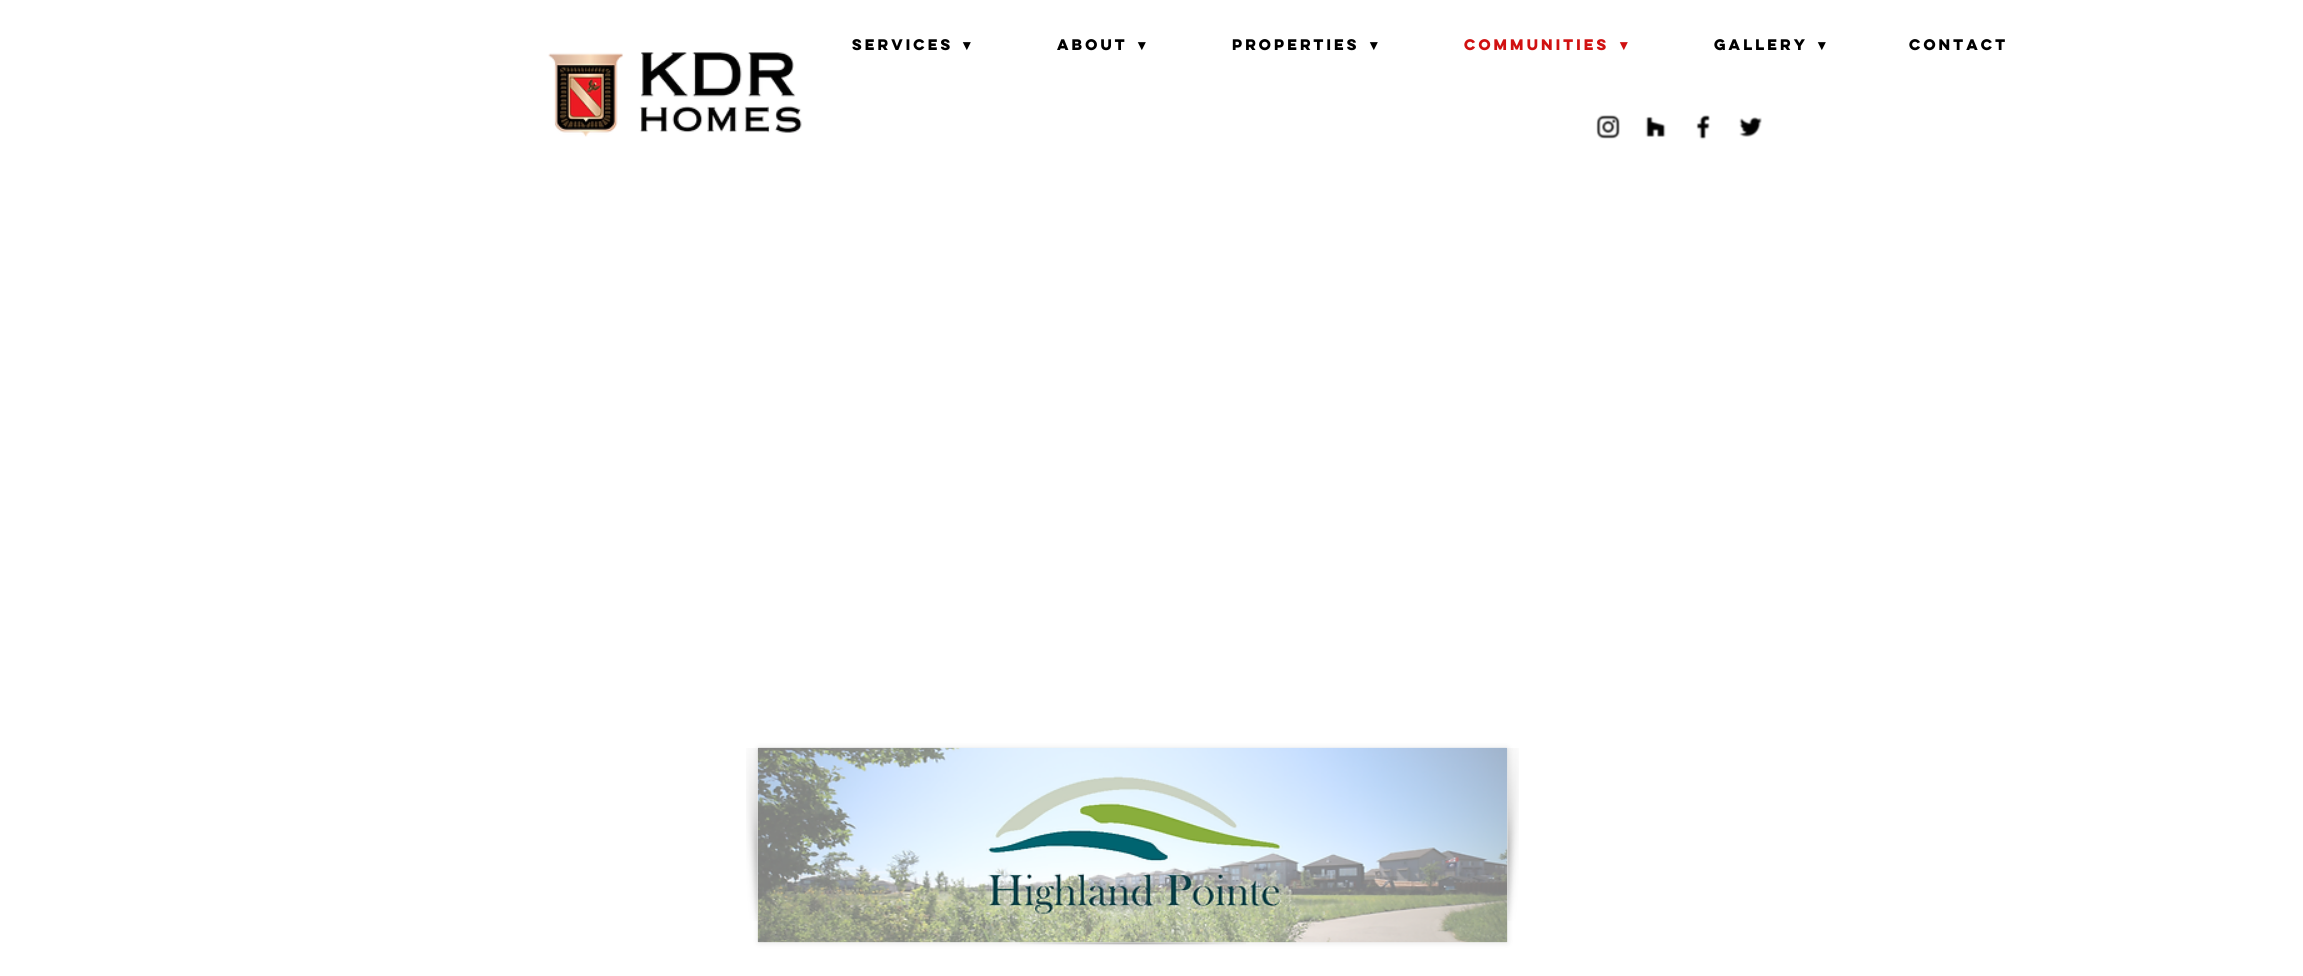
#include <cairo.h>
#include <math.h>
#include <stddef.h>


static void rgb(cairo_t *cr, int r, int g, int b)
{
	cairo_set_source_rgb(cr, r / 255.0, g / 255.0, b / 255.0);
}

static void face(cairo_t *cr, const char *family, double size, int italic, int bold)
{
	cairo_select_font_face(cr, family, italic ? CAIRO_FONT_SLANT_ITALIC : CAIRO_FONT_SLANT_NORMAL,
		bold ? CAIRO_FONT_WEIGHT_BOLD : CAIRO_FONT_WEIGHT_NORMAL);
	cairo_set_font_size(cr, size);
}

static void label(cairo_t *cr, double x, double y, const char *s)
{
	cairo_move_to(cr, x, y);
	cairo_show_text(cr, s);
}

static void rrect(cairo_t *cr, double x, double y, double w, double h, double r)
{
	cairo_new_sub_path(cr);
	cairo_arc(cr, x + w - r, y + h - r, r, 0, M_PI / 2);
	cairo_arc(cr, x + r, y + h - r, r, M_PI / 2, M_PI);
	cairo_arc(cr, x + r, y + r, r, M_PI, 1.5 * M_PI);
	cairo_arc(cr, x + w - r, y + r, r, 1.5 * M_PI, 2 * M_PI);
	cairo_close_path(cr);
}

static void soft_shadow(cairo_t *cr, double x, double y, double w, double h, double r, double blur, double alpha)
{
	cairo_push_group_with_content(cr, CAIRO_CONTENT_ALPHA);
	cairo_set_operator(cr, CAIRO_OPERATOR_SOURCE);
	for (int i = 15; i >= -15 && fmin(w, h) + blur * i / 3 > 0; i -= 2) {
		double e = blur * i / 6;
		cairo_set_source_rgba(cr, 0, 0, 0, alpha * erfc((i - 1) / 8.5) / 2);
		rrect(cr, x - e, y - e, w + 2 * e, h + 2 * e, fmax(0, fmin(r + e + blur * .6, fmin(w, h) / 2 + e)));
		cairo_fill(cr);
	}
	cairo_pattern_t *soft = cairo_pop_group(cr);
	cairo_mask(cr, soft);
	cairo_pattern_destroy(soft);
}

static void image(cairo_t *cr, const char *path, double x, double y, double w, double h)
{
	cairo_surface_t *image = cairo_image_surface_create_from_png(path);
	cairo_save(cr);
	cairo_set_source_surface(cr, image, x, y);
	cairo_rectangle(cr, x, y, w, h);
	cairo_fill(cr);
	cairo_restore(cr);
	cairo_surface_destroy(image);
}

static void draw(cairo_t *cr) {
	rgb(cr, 255, 255, 255);
	cairo_paint(cr);
	face(cr, "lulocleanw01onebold", 13.75, 0, 1);
	rgb(cr, 0, 0, 0);
	label(cr, 852, 50, "SERVICES");
	face(cr, "Liberation Sans", 13.75, 0, 0);
	label(cr, 960, 50, "▼");
	face(cr, "lulocleanw01onebold", 13.75, 0, 1);
	label(cr, 1057, 50, "ABOUT");
	face(cr, "Liberation Sans", 13.75, 0, 0);
	label(cr, 1135, 50, "▼");
	face(cr, "lulocleanw01onebold", 13.75, 0, 1);
	label(cr, 1232, 50, "PROPERTIES");
	face(cr, "Liberation Sans", 13.75, 0, 0);
	label(cr, 1367, 50, "▼");
	face(cr, "lulocleanw01onebold", 13.75, 0, 1);
	rgb(cr, 209, 17, 17);
	label(cr, 1464, 50, "COMMUNITIES");
	face(cr, "Liberation Sans", 13.75, 0, 0);
	label(cr, 1617, 50, "▼");
	face(cr, "lulocleanw01onebold", 13.75, 0, 1);
	rgb(cr, 0, 0, 0);
	label(cr, 1714, 50, "GALLERY");
	face(cr, "Liberation Sans", 13.75, 0, 0);
	label(cr, 1815, 50, "▼");
	face(cr, "lulocleanw01onebold", 13.75, 0, 1);
	label(cr, 1909, 50, "CONTACT");
	image(cr, "image0.png", 548, 52, 254, 85);
	image(cr, "image1.png", 1596, 115, 24, 24);
	image(cr, "image2.png", 1645, 116, 21, 21);
	image(cr, "image3.png", 1696, 115, 14, 25);
	image(cr, "image4.png", 1739, 117, 23, 20);
	rgb(cr, 0, 0, 0);
	soft_shadow(cr, 758, 748, 750, 195, 1, 3, 0.1);
	image(cr, "image5.png", 757, 747, 751, 196);
	image(cr, "image6.png", 1020, 942, 226, 3);
	image(cr, "image7.png", 746, 748, 12, 173);
	image(cr, "image8.png", 1507, 748, 12, 173);
}

int main(void) {
	cairo_surface_t *surface = cairo_image_surface_create(CAIRO_FORMAT_RGB24, 2303, 976);
	cairo_t *cr = cairo_create(surface);
	cairo_font_options_t *options = cairo_font_options_create();
	cairo_font_options_set_hint_metrics(options, CAIRO_HINT_METRICS_OFF);
	cairo_font_options_set_hint_style(options, CAIRO_HINT_STYLE_NONE);
	cairo_set_font_options(cr, options);
	cairo_set_miter_limit(cr, 4);
	draw(cr);
	cairo_surface_write_to_png(surface, "render.png");
	cairo_font_options_destroy(options);
	cairo_destroy(cr);
	cairo_surface_destroy(surface);
	return 0;
}
